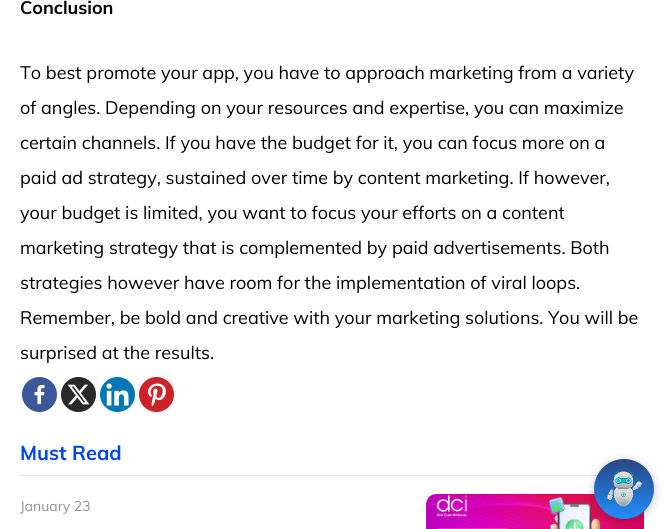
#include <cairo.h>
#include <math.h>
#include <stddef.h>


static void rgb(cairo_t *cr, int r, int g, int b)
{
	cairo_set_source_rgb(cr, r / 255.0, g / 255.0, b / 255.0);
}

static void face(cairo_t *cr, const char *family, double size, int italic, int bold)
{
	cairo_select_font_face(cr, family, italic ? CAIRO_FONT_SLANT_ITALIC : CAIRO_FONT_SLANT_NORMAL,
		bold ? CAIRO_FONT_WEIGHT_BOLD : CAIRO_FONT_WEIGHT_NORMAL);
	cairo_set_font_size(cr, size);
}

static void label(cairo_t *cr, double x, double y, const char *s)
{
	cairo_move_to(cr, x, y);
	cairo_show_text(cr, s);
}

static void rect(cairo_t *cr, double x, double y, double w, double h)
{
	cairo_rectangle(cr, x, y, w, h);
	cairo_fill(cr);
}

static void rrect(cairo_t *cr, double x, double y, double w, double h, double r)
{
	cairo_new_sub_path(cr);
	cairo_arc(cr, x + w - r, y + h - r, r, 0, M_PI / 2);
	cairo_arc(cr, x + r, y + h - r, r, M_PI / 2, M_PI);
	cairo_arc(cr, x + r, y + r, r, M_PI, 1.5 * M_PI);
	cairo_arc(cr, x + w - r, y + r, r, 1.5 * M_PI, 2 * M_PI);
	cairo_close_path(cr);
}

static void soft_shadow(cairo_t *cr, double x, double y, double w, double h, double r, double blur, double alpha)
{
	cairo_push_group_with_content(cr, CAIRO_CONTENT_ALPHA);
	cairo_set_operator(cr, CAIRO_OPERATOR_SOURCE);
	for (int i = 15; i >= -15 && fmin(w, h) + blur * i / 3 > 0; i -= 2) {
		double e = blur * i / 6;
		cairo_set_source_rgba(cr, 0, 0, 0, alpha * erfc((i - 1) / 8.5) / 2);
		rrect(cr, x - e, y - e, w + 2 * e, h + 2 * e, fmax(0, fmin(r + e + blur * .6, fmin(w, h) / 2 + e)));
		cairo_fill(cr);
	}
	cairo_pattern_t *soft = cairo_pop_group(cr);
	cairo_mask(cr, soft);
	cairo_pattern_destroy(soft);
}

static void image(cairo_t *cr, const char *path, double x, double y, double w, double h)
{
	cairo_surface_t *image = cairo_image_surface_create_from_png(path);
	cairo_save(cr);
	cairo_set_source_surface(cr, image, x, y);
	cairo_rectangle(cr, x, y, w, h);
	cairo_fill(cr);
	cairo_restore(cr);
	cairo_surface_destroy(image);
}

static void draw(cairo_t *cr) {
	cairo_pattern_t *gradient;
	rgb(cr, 255, 255, 255);
	cairo_paint(cr);
	face(cr, "Muli", 18, 0, 1);
	rgb(cr, 0, 0, 0);
	label(cr, 20, 14, "Conclusion");
	face(cr, "Muli", 18, 0, 0);
	label(cr, 20, 79, "To best promote your app, you have to approach marketing from a variety");
	label(cr, 20, 114, "of angles. Depending on your resources and expertise, you can maximize");
	label(cr, 20, 149, "certain channels. If you have the budget for it, you can focus more on a");
	label(cr, 20, 184, "paid ad strategy, sustained over time by content marketing. If however,");
	label(cr, 20, 219, "your budget is limited, you want to focus your efforts on a content");
	label(cr, 20, 254, "marketing strategy that is complemented by paid advertisements. Both");
	label(cr, 20, 289, "strategies however have room for the implementation of viral loops.");
	label(cr, 20, 324, "Remember, be bold and creative with your marketing solutions. You will be");
	label(cr, 20, 359, "surprised at the results.");
	rgb(cr, 60, 88, 154);
	cairo_new_path(cr);
	cairo_arc(cr, 39.5, 394.5, 17.5, 0, 2 * M_PI);
	cairo_fill(cr);
	image(cr, "image0.png", 34, 384, 11, 21);
	rgb(cr, 42, 42, 42);
	cairo_arc(cr, 78.5, 394.5, 17.5, 0, 2 * M_PI);
	cairo_fill(cr);
	image(cr, "image1.png", 67, 384, 23, 21);
	rgb(cr, 0, 119, 181);
	cairo_arc(cr, 117.5, 394.5, 17.5, 0, 2 * M_PI);
	cairo_fill(cr);
	image(cr, "image2.png", 106, 383, 23, 23);
	rgb(cr, 204, 35, 41);
	cairo_arc(cr, 156.5, 394.5, 17.5, 0, 2 * M_PI);
	cairo_fill(cr);
	image(cr, "image3.png", 148, 383, 18, 24);
	rgb(cr, 229, 229, 229);
	rect(cr, 20, 475, 578, 1);
	face(cr, "Muli", 20, 0, 1);
	rgb(cr, 0, 69, 232);
	label(cr, 20, 460, "Must Read");
	face(cr, "Muli", 14, 0, 0);
	rgb(cr, 145, 145, 145);
	label(cr, 20, 511, "January 23");
	image(cr, "image4.png", 426, 494, 218, 35);
	rgb(cr, 0, 0, 0);
	soft_shadow(cr, 594, 461, 60, 60, 30, 5, 0.2);
	gradient = cairo_pattern_create_linear(624, 459, 624, 519);
	cairo_pattern_add_color_stop_rgba(gradient, 0, 0.165, 0.275, 0.51, 1);
	cairo_pattern_add_color_stop_rgba(gradient, 1, 0.122, 0.561, 0.988, 1);
	cairo_set_source(cr, gradient);
	cairo_pattern_destroy(gradient);
	cairo_arc(cr, 624, 489, 30, 0, 2 * M_PI);
	cairo_fill(cr);
	image(cr, "image5.png", 607, 471, 35, 36);
}

int main(void) {
	cairo_surface_t *surface = cairo_image_surface_create(CAIRO_FORMAT_RGB24, 664, 529);
	cairo_t *cr = cairo_create(surface);
	cairo_font_options_t *options = cairo_font_options_create();
	cairo_font_options_set_hint_metrics(options, CAIRO_HINT_METRICS_OFF);
	cairo_font_options_set_hint_style(options, CAIRO_HINT_STYLE_NONE);
	cairo_set_font_options(cr, options);
	cairo_set_miter_limit(cr, 4);
	draw(cr);
	cairo_surface_write_to_png(surface, "render.png");
	cairo_font_options_destroy(options);
	cairo_destroy(cr);
	cairo_surface_destroy(surface);
	return 0;
}
